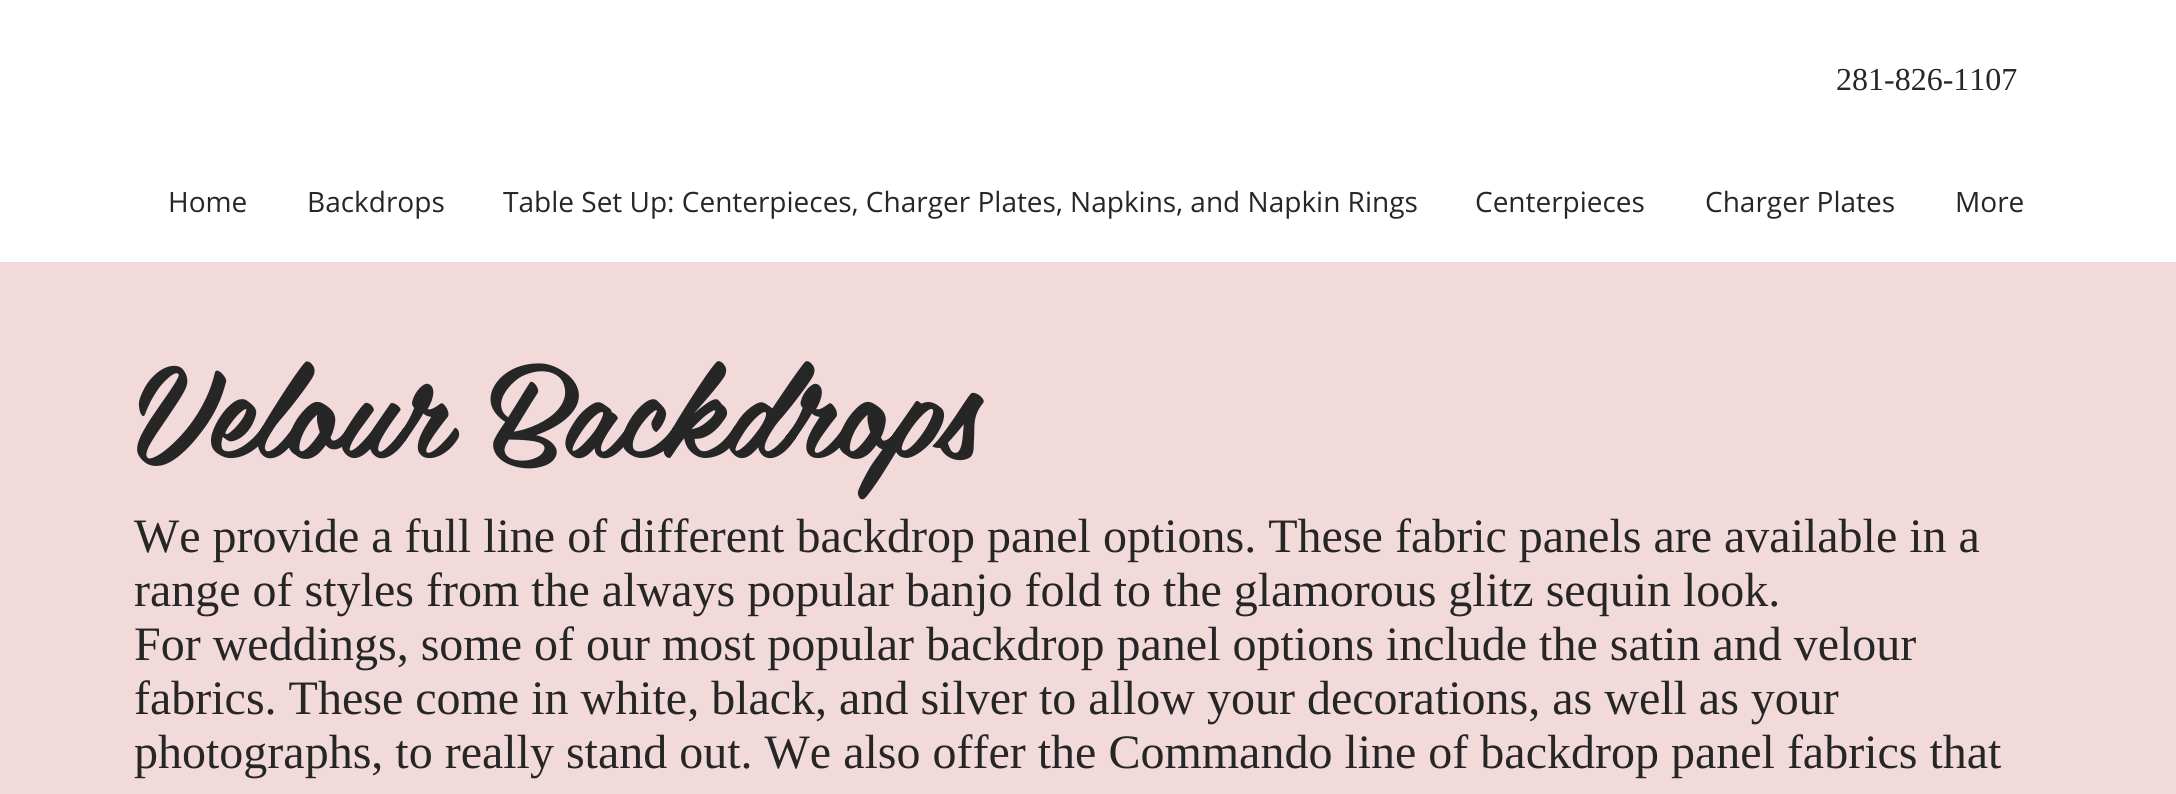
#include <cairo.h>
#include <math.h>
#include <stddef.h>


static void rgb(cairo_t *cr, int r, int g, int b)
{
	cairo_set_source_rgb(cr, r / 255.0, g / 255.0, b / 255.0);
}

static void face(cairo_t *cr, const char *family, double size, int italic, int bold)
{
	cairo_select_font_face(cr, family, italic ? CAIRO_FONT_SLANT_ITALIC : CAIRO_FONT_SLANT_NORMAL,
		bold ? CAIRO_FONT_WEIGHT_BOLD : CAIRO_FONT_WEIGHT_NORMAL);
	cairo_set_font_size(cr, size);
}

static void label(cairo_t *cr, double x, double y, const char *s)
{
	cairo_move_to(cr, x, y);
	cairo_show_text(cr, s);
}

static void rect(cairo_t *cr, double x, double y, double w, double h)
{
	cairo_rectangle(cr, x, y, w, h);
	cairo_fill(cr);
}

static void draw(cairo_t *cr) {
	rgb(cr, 255, 255, 255);
	cairo_paint(cr);
	face(cr, "Liberation Serif", 32, 0, 0);
	rgb(cr, 38, 38, 38);
	label(cr, 1836, 90, "281-826-1107");
	face(cr, "Open Sans", 28, 0, 0);
	label(cr, 168, 212, "Home");
	label(cr, 307, 212, "Backdrops");
	label(cr, 503, 212, "Table Set Up: Centerpieces, Charger Plates, Napkins, and Napkin Rings");
	label(cr, 1475, 212, "Centerpieces");
	label(cr, 1705, 212, "Charger Plates");
	label(cr, 1955, 212, "More");
	rgb(cr, 243, 218, 218);
	rect(cr, 0, 262, 2176, 532);
	face(cr, "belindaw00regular", 130, 0, 0);
	rgb(cr, 38, 38, 38);
	label(cr, 134, 458, "Velour Backdrops");
	face(cr, "Liberation Serif", 48, 0, 0);
	label(cr, 134, 552, "We provide a full line of different backdrop panel options. These fabric panels are available in a");
	label(cr, 134, 606, "range of styles from the always popular banjo fold to the glamorous glitz sequin look.");
	label(cr, 134, 660, "For weddings, some of our most popular backdrop panel options include the satin and velour");
	label(cr, 134, 714, "fabrics. These come in white, black, and silver to allow your decorations, as well as your");
	label(cr, 134, 768, "photographs, to really stand out. We also offer the Commando line of backdrop panel fabrics that");
}

int main(void) {
	cairo_surface_t *surface = cairo_image_surface_create(CAIRO_FORMAT_RGB24, 2176, 794);
	cairo_t *cr = cairo_create(surface);
	cairo_font_options_t *options = cairo_font_options_create();
	cairo_font_options_set_hint_metrics(options, CAIRO_HINT_METRICS_OFF);
	cairo_font_options_set_hint_style(options, CAIRO_HINT_STYLE_NONE);
	cairo_set_font_options(cr, options);
	cairo_set_miter_limit(cr, 4);
	draw(cr);
	cairo_surface_write_to_png(surface, "render.png");
	cairo_font_options_destroy(options);
	cairo_destroy(cr);
	cairo_surface_destroy(surface);
	return 0;
}
